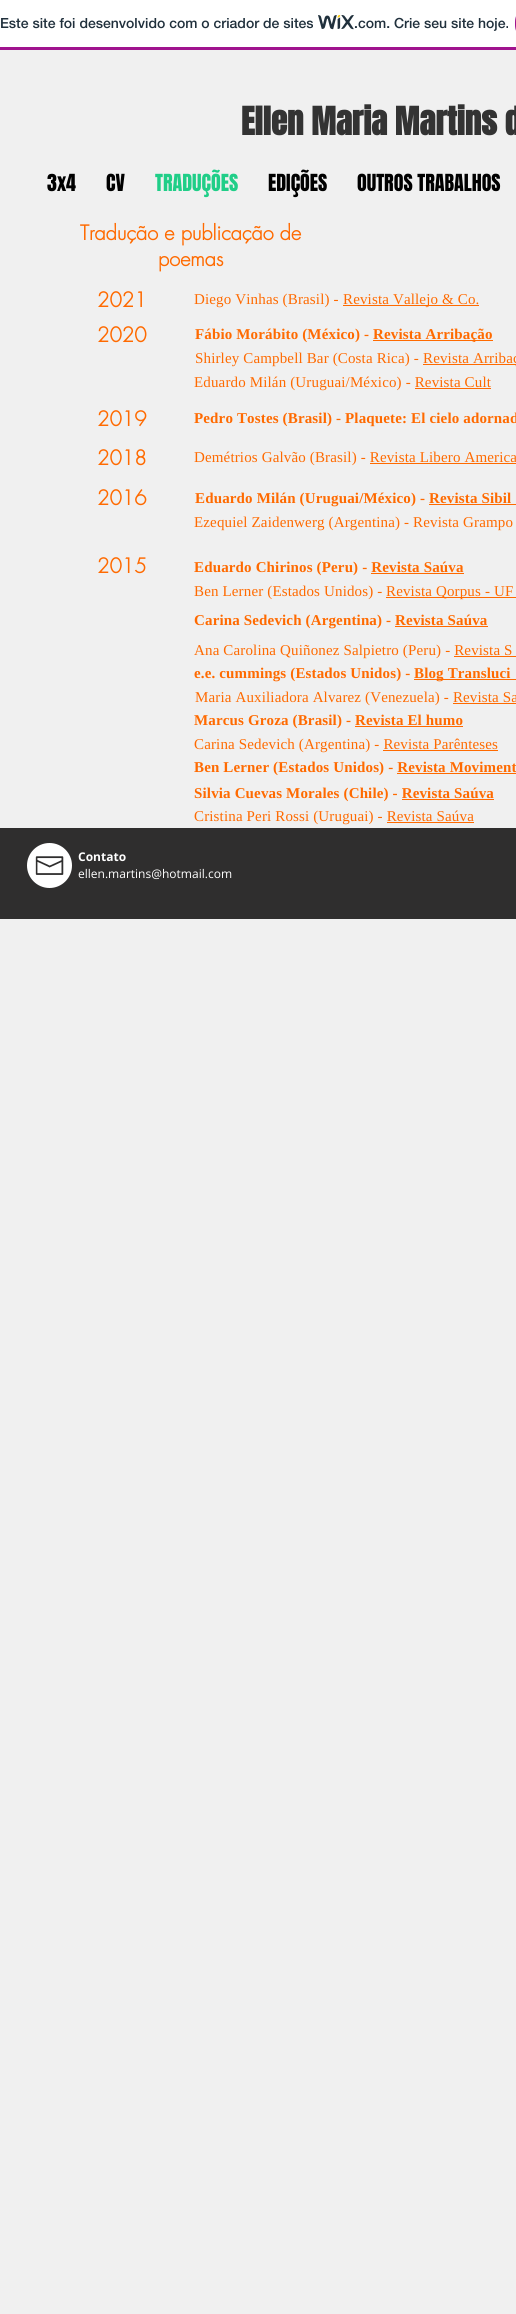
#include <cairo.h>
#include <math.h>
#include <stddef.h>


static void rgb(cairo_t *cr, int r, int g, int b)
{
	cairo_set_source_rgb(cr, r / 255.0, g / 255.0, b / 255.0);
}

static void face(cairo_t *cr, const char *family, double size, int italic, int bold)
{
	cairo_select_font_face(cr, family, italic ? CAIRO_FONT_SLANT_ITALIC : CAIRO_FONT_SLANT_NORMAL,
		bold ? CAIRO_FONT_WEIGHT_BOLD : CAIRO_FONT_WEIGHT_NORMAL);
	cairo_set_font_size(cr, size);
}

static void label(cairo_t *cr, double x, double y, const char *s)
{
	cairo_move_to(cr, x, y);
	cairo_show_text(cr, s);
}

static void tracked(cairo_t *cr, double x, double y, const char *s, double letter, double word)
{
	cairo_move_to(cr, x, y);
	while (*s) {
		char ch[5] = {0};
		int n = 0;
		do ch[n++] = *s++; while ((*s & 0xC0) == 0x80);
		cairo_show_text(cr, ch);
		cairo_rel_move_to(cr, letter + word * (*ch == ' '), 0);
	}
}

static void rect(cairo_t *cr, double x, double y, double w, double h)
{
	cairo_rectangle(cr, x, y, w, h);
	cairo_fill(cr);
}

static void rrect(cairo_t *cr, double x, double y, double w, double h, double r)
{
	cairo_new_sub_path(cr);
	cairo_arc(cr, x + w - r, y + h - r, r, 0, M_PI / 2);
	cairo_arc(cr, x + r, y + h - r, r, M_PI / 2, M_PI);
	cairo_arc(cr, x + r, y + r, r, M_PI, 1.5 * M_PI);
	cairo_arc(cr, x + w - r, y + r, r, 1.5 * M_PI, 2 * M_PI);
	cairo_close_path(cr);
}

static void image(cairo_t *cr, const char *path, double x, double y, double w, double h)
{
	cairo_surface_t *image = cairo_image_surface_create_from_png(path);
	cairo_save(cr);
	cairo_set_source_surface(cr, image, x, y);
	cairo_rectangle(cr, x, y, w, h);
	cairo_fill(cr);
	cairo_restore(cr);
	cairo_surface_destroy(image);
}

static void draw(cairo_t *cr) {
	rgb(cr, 255, 255, 255);
	cairo_paint(cr);
	rgb(cr, 160, 19, 142);
	rect(cr, 0, 47, 516, 3);
	face(cr, "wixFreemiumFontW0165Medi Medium", 14, 0, 0);
	rgb(cr, 32, 48, 60);
	label(cr, 0, 28, "Este site foi desenvolvido com o criador de sites");
	image(cr, "image0.png", 318, 15, 36, 15);
	label(cr, 354, 28, ".com. Crie seu site hoje.");
	rrect(cr, 515.5, 5.5, 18, 36, 16.5);
	rgb(cr, 160, 19, 142);
	cairo_set_line_width(cr, 1);
	cairo_stroke(cr);
	rgb(cr, 240, 240, 240);
	rect(cr, 0, 50, 516, 2264);
	face(cr, "Anton", 33, 0, 1);
	rgb(cr, 51, 51, 51);
	label(cr, 241, 135, "Ellen Maria Martins d");
	face(cr, "Anton", 20, 0, 0);
	rgb(cr, 0, 0, 0);
	label(cr, 47, 191, "3x4");
	label(cr, 106, 191, "CV");
	rgb(cr, 32, 206, 136);
	label(cr, 155, 191, "TRADUÇÕES");
	rgb(cr, 0, 0, 0);
	label(cr, 268, 191, "EDIÇÕES");
	label(cr, 357, 191, "OUTROS TRABALHOS");
	face(cr, "futura", 20, 0, 1);
	rgb(cr, 255, 106, 0);
	label(cr, 80, 240, "Tradução e publicação de");
	label(cr, 158, 266, "poemas");
	label(cr, 97, 307, "2021");
	face(cr, "Liberation Serif", 15, 0, 0);
	tracked(cr, 194, 304, "Diego Vinhas (Brasil) -", 0.15, 0);
	rect(cr, 343, 305, 136, 1);
	tracked(cr, 343, 304, "Revista Vallejo & Co.", 0.15, 0);
	face(cr, "futura", 20, 0, 1);
	label(cr, 97, 342, "2020");
	face(cr, "Liberation Serif", 15, 0, 1);
	tracked(cr, 195, 339, "Fábio Morábito (México) -", 0.15, 0);
	rect(cr, 373, 340, 120, 1);
	tracked(cr, 373, 339, "Revista Arribação", 0.15, 0);
	face(cr, "Liberation Serif", 15, 0, 0);
	tracked(cr, 195, 363, "Shirley Campbell Bar (Costa Rica) -", 0.15, 0);
	rect(cr, 423, 364, 93, 1);
	tracked(cr, 423, 363, "Revista Arribaç", 0.15, 0);
	tracked(cr, 194, 387, "Eduardo Milán (Uruguai/México) - Revista Cult", 0.15, 0);
	rect(cr, 415, 388, 76, 1);
	face(cr, "futura", 20, 0, 1);
	label(cr, 97, 426, "2019");
	face(cr, "Liberation Serif", 15, 0, 1);
	tracked(cr, 194, 423, "Pedro Tostes (Brasil) - Plaquete: El cielo adornad", 0.15, 0);
	face(cr, "futura", 20, 0, 1);
	label(cr, 97, 465, "2018");
	face(cr, "Liberation Serif", 15, 0, 0);
	tracked(cr, 194, 462, "Demétrios Galvão (Brasil) - Revista Libero America", 0.15, 0);
	rect(cr, 370, 463, 146, 1);
	face(cr, "futura", 20, 0, 1);
	label(cr, 97, 505, "2016");
	face(cr, "Liberation Serif", 15, 0, 1);
	tracked(cr, 195, 503, "Eduardo Milán (Uruguai/México) - Revista Sibil", 0.15, 0);
	rect(cr, 429, 504, 87, 1);
	face(cr, "Liberation Serif", 15, 0, 0);
	tracked(cr, 194, 527, "Ezequiel Zaidenwerg (Argentina) - Revista Grampo", 0.15, 0);
	face(cr, "futura", 20, 0, 1);
	label(cr, 97, 573, "2015");
	face(cr, "Liberation Serif", 15, 0, 1);
	tracked(cr, 194, 572, "Eduardo Chirinos (Peru) - Revista Saúva", 0.15, 0);
	rect(cr, 371, 573, 93, 1);
	face(cr, "Liberation Serif", 15, 0, 0);
	tracked(cr, 194, 596, "Ben Lerner (Estados Unidos) -", 0.15, 0);
	rect(cr, 386, 597, 130, 1);
	tracked(cr, 386, 596, "Revista Qorpus - UF", 0.15, 0);
	face(cr, "Liberation Serif", 15, 0, 1);
	tracked(cr, 194, 625, "Carina Sedevich (Argentina) - Revista Saúva", 0.15, 0);
	rect(cr, 395, 626, 93, 1);
	face(cr, "Liberation Serif", 15, 0, 0);
	tracked(cr, 194, 655, "Ana Carolina Quiñonez Salpietro (Peru) - Revista S", 0.15, 0);
	rect(cr, 454, 656, 62, 1);
	face(cr, "Liberation Serif", 15, 0, 1);
	tracked(cr, 194, 678, "e.e. cummings (Estados Unidos) -", 0.15, 0);
	rect(cr, 414, 679, 102, 1);
	tracked(cr, 414, 678, "Blog Transluci", 0.15, 0);
	face(cr, "Liberation Serif", 15, 0, 0);
	tracked(cr, 195, 702, "Maria Auxiliadora Alvarez (Venezuela) - Revista Sa", 0.15, 0);
	rect(cr, 453, 703, 63, 1);
	face(cr, "Liberation Serif", 15, 0, 1);
	tracked(cr, 194, 725, "Marcus Groza (Brasil) - Revista El humo", 0.15, 0);
	rect(cr, 355, 726, 108, 1);
	face(cr, "Liberation Serif", 15, 0, 0);
	tracked(cr, 194, 749, "Carina Sedevich (Argentina) - Revista Parênteses", 0.15, 0);
	rect(cr, 383, 750, 115, 1);
	face(cr, "Liberation Serif", 15, 0, 1);
	tracked(cr, 194, 772, "Ben Lerner (Estados Unidos) - Revista Moviment", 0.15, 0);
	rect(cr, 397, 773, 119, 1);
	tracked(cr, 194, 798, "Silvia Cuevas Morales (Chile) - Revista Saúva", 0.15, 0);
	rect(cr, 402, 799, 92, 1);
	face(cr, "Liberation Serif", 15, 0, 0);
	tracked(cr, 194, 821, "Cristina Peri Rossi (Uruguai) - Revista Saúva", 0.15, 0);
	rect(cr, 387, 822, 87, 1);
	rgb(cr, 47, 46, 46);
	rect(cr, 0, 828, 516, 91);
	image(cr, "image1.png", 27, 843, 45, 45);
	face(cr, "Open Sans", 12, 0, 1);
	rgb(cr, 255, 255, 255);
	label(cr, 78, 861, "Contato");
	face(cr, "Open Sans", 12, 0, 0);
	label(cr, 78, 878, "ellen.martins@hotmail.com");
}

int main(void) {
	cairo_surface_t *surface = cairo_image_surface_create(CAIRO_FORMAT_RGB24, 516, 2314);
	cairo_t *cr = cairo_create(surface);
	cairo_font_options_t *options = cairo_font_options_create();
	cairo_font_options_set_hint_metrics(options, CAIRO_HINT_METRICS_OFF);
	cairo_font_options_set_hint_style(options, CAIRO_HINT_STYLE_NONE);
	cairo_set_font_options(cr, options);
	cairo_set_miter_limit(cr, 4);
	draw(cr);
	cairo_surface_write_to_png(surface, "render.png");
	cairo_font_options_destroy(options);
	cairo_destroy(cr);
	cairo_surface_destroy(surface);
	return 0;
}
